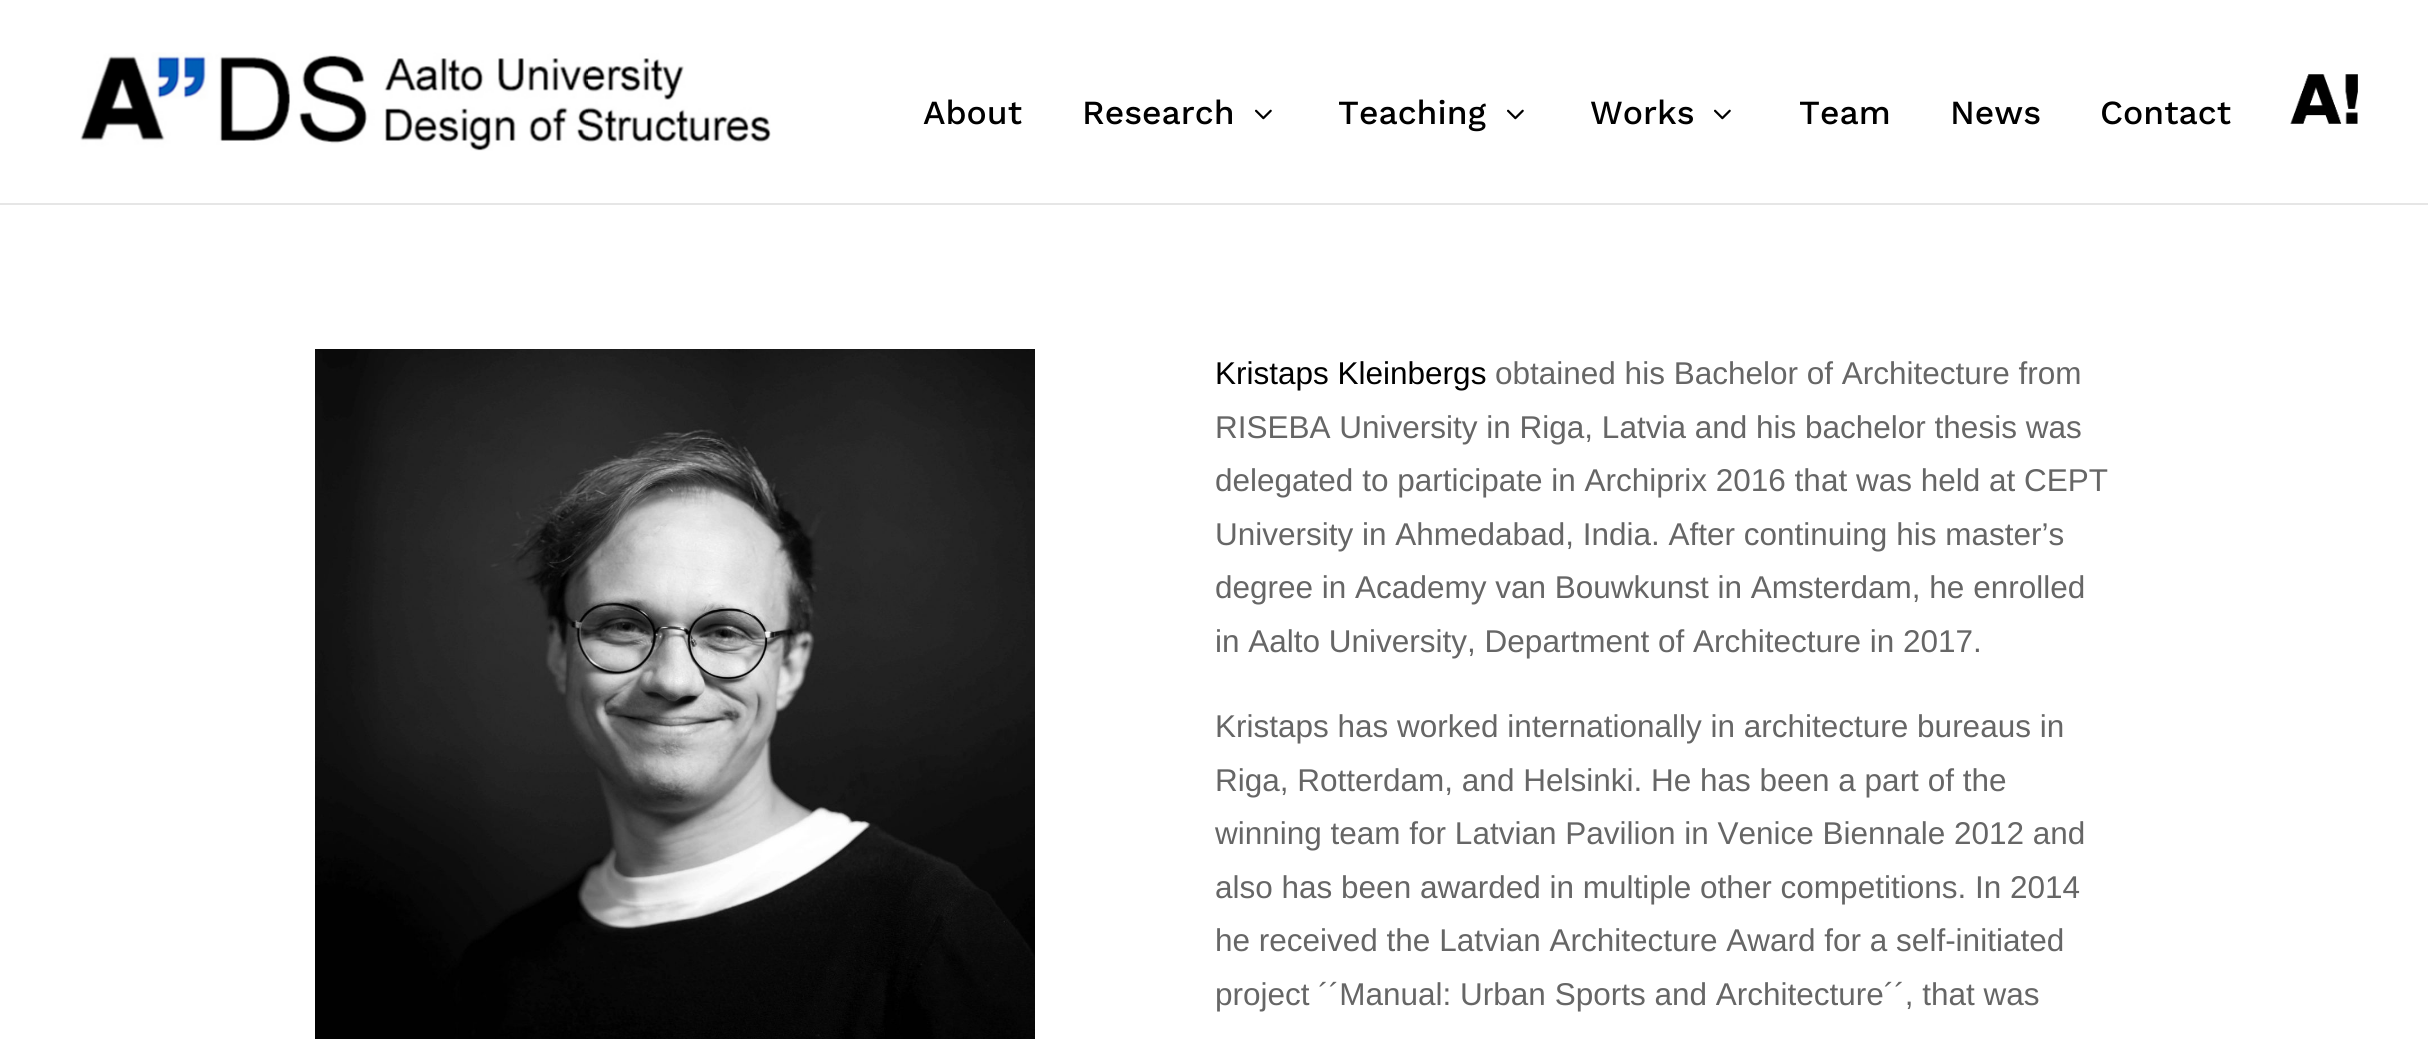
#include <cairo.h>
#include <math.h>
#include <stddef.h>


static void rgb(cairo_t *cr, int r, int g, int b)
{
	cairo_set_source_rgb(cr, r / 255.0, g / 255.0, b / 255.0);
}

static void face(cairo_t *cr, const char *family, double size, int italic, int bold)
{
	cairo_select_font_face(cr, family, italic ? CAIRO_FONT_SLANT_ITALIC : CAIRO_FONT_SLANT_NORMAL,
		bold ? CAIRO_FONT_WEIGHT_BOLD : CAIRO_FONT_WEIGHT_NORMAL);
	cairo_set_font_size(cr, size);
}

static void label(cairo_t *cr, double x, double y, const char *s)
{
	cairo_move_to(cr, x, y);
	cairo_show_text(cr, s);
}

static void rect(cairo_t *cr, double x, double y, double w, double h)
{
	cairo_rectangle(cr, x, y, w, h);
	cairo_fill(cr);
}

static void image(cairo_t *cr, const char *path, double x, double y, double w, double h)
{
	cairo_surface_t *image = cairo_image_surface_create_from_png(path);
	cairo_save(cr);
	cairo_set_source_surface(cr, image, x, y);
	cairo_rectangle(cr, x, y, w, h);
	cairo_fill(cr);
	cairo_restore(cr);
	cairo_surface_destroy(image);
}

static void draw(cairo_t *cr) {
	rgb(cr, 255, 255, 255);
	cairo_paint(cr);
	rgb(cr, 230, 230, 230);
	rect(cr, 0, 203, 2428, 2);
	image(cr, "image0.png", 80, 52, 691, 99);
	face(cr, "Work Sans Medium", 33.75, 0, 0);
	rgb(cr, 0, 0, 0);
	label(cr, 923, 124, "About");
	label(cr, 1082, 124, "Research");
	image(cr, "image1.png", 1255, 109, 17, 11);
	label(cr, 1338, 124, "Teaching");
	image(cr, "image1.png", 1507, 109, 17, 11);
	label(cr, 1590, 124, "Works");
	image(cr, "image1.png", 1714, 109, 17, 11);
	label(cr, 1799, 124, "Team");
	label(cr, 1950, 124, "News");
	label(cr, 2100, 124, "Contact");
	image(cr, "image2.png", 2290, 74, 68, 50);
	image(cr, "image3.png", 315, 349, 720, 690);
	face(cr, "Liberation Sans", 31.5, 0, 0);
	label(cr, 1215, 384, "Kristaps Kleinbergs");
	rgb(cr, 102, 102, 102);
	label(cr, 1495, 384, "obtained his Bachelor of Architecture from");
	label(cr, 1215, 438, "RISEBA University in Riga, Latvia and his bachelor thesis was");
	label(cr, 1215, 491, "delegated to participate in Archiprix 2016 that was held at CEPT");
	label(cr, 1215, 545, "University in Ahmedabad, India. After continuing his master’s");
	label(cr, 1215, 598, "degree in Academy van Bouwkunst in Amsterdam, he enrolled");
	label(cr, 1215, 652, "in Aalto University, Department of Architecture in 2017.");
	label(cr, 1215, 737, "Kristaps has worked internationally in architecture bureaus in");
	label(cr, 1215, 791, "Riga, Rotterdam, and Helsinki. He has been a part of the");
	label(cr, 1215, 844, "winning team for Latvian Pavilion in Venice Biennale 2012 and");
	label(cr, 1215, 898, "also has been awarded in multiple other competitions. In 2014");
	label(cr, 1215, 951, "he received the Latvian Architecture Award for a self-initiated");
	label(cr, 1215, 1005, "project ´´Manual: Urban Sports and Architecture´´, that was");
}

int main(void) {
	cairo_surface_t *surface = cairo_image_surface_create(CAIRO_FORMAT_RGB24, 2428, 1039);
	cairo_t *cr = cairo_create(surface);
	cairo_font_options_t *options = cairo_font_options_create();
	cairo_font_options_set_hint_metrics(options, CAIRO_HINT_METRICS_OFF);
	cairo_font_options_set_hint_style(options, CAIRO_HINT_STYLE_NONE);
	cairo_set_font_options(cr, options);
	cairo_set_miter_limit(cr, 4);
	draw(cr);
	cairo_surface_write_to_png(surface, "render.png");
	cairo_font_options_destroy(options);
	cairo_destroy(cr);
	cairo_surface_destroy(surface);
	return 0;
}
